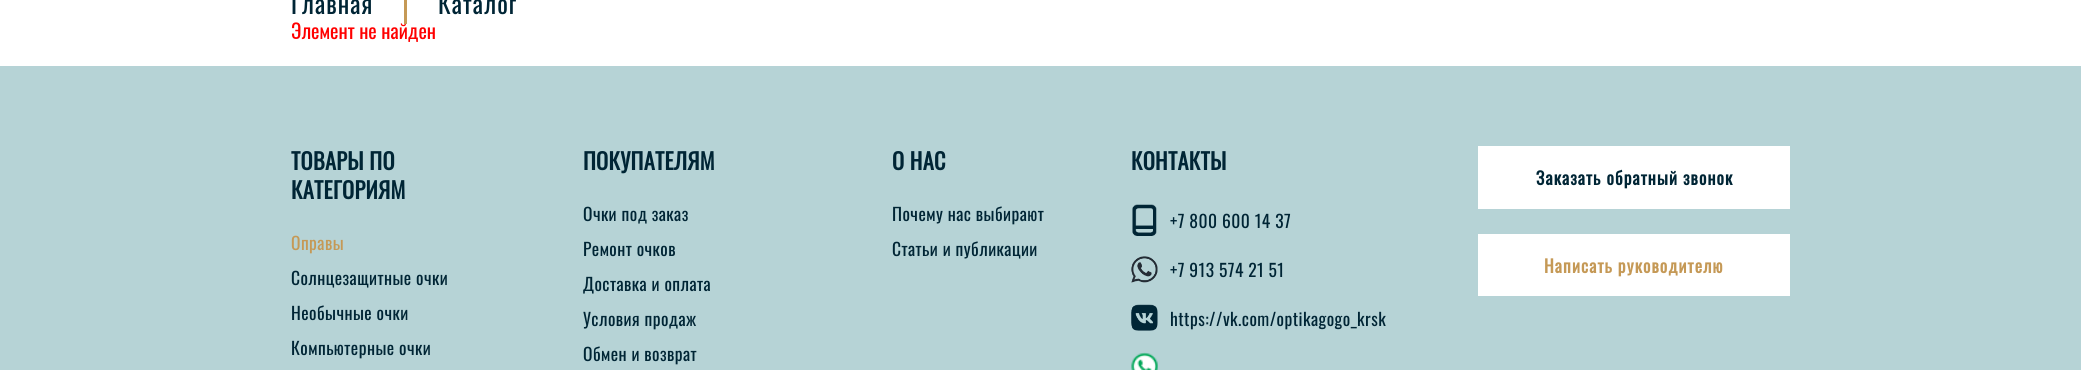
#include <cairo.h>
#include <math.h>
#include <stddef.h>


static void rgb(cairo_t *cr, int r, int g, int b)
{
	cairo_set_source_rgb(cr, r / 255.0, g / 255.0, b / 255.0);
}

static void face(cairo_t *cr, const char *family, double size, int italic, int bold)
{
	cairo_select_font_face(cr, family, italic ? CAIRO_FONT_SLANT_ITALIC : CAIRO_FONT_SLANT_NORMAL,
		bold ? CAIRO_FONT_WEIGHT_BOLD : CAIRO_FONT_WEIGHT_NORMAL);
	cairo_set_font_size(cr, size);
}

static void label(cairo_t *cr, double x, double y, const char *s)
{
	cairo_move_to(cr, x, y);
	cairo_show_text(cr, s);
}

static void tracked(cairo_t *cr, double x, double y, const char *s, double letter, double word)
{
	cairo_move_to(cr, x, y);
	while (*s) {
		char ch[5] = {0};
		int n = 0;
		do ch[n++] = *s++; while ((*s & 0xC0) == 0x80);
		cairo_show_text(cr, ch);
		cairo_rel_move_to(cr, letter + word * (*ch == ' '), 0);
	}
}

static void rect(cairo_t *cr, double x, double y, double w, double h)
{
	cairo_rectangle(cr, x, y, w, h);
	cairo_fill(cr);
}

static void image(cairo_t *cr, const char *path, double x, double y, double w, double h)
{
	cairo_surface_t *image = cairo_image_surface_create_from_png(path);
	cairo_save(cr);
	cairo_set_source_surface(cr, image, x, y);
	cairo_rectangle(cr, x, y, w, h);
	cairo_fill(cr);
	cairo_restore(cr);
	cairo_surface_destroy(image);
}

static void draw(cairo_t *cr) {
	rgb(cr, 255, 255, 255);
	cairo_paint(cr);
	face(cr, "Oswald", 25, 0, 0);
	rgb(cr, 0, 37, 53);
	tracked(cr, 291, 14, "Главная", 1.05, 0);
	face(cr, "Oswald", 20, 0, 0);
	rgb(cr, 255, 0, 0);
	label(cr, 291, 39, "Элемент не найден");
	rgb(cr, 197, 153, 86);
	rect(cr, 404, 0, 3, 24);
	face(cr, "Oswald", 25, 0, 0);
	rgb(cr, 0, 37, 53);
	tracked(cr, 438, 14, "Каталог", 1.05, 0);
	rgb(cr, 182, 211, 214);
	rect(cr, 0, 66, 2081, 304);
	face(cr, "Oswald", 22.5, 0, 1);
	rgb(cr, 0, 37, 53);
	tracked(cr, 291, 170, "ТОВАРЫ ПО", 0.25, 0);
	tracked(cr, 291, 199, "КАТЕГОРИЯМ", 0.25, 0);
	face(cr, "Oswald", 17.5, 0, 0);
	rgb(cr, 197, 153, 86);
	tracked(cr, 291, 250, "Оправы", 0.45, 0);
	rgb(cr, 0, 37, 53);
	tracked(cr, 291, 285, "Солнцезащитные очки", 0.45, 0);
	tracked(cr, 291, 320, "Необычные очки", 0.45, 0);
	tracked(cr, 291, 355, "Компьютерные очки", 0.45, 0);
	face(cr, "Oswald", 22.5, 0, 1);
	tracked(cr, 583, 170, "ПОКУПАТЕЛЯМ", 0.25, 0);
	face(cr, "Oswald", 17.5, 0, 0);
	tracked(cr, 583, 221, "Очки под заказ", 0.45, 0);
	tracked(cr, 583, 256, "Ремонт очков", 0.45, 0);
	tracked(cr, 583, 291, "Доставка и оплата", 0.45, 0);
	tracked(cr, 583, 326, "Условия продаж", 0.45, 0);
	tracked(cr, 583, 361, "Обмен и возврат", 0.45, 0);
	face(cr, "Oswald", 22.5, 0, 1);
	tracked(cr, 892, 170, "О НАС", 0.25, 0);
	face(cr, "Oswald", 17.5, 0, 0);
	tracked(cr, 892, 221, "Почему нас выбирают", 0.45, 0);
	tracked(cr, 892, 256, "Статьи и публикации", 0.45, 0);
	face(cr, "Oswald", 22.5, 0, 1);
	tracked(cr, 1131, 170, "КОНТАКТЫ", 0.25, 0);
	image(cr, "image0.png", 1132, 204, 25, 32);
	face(cr, "Oswald", 17.5, 0, 0);
	tracked(cr, 1170, 228, "+7 800 600 14 37", 0.45, 0);
	image(cr, "image1.png", 1131, 256, 27, 27);
	tracked(cr, 1170, 277, "+7 913 574 21 51", 0.45, 0);
	image(cr, "image2.png", 1131, 304, 27, 27);
	tracked(cr, 1170, 326, "https://vk.com/optikagogo_krsk", 0.45, 0);
	image(cr, "image3.png", 1131, 352, 27, 18);
	rgb(cr, 255, 255, 255);
	rect(cr, 1478, 146, 312, 63);
	face(cr, "Oswald", 17.5, 0, 1);
	rgb(cr, 0, 37, 53);
	tracked(cr, 1536, 185, "Заказать обратный звонок", 1.05, 0);
	rgb(cr, 255, 255, 255);
	rect(cr, 1478, 234, 312, 62);
	rgb(cr, 197, 153, 86);
	tracked(cr, 1544, 273, "Написать руководителю", 1.05, 0);
}

int main(void) {
	cairo_surface_t *surface = cairo_image_surface_create(CAIRO_FORMAT_RGB24, 2081, 370);
	cairo_t *cr = cairo_create(surface);
	cairo_font_options_t *options = cairo_font_options_create();
	cairo_font_options_set_hint_metrics(options, CAIRO_HINT_METRICS_OFF);
	cairo_font_options_set_hint_style(options, CAIRO_HINT_STYLE_NONE);
	cairo_set_font_options(cr, options);
	cairo_set_miter_limit(cr, 4);
	draw(cr);
	cairo_surface_write_to_png(surface, "render.png");
	cairo_font_options_destroy(options);
	cairo_destroy(cr);
	cairo_surface_destroy(surface);
	return 0;
}
